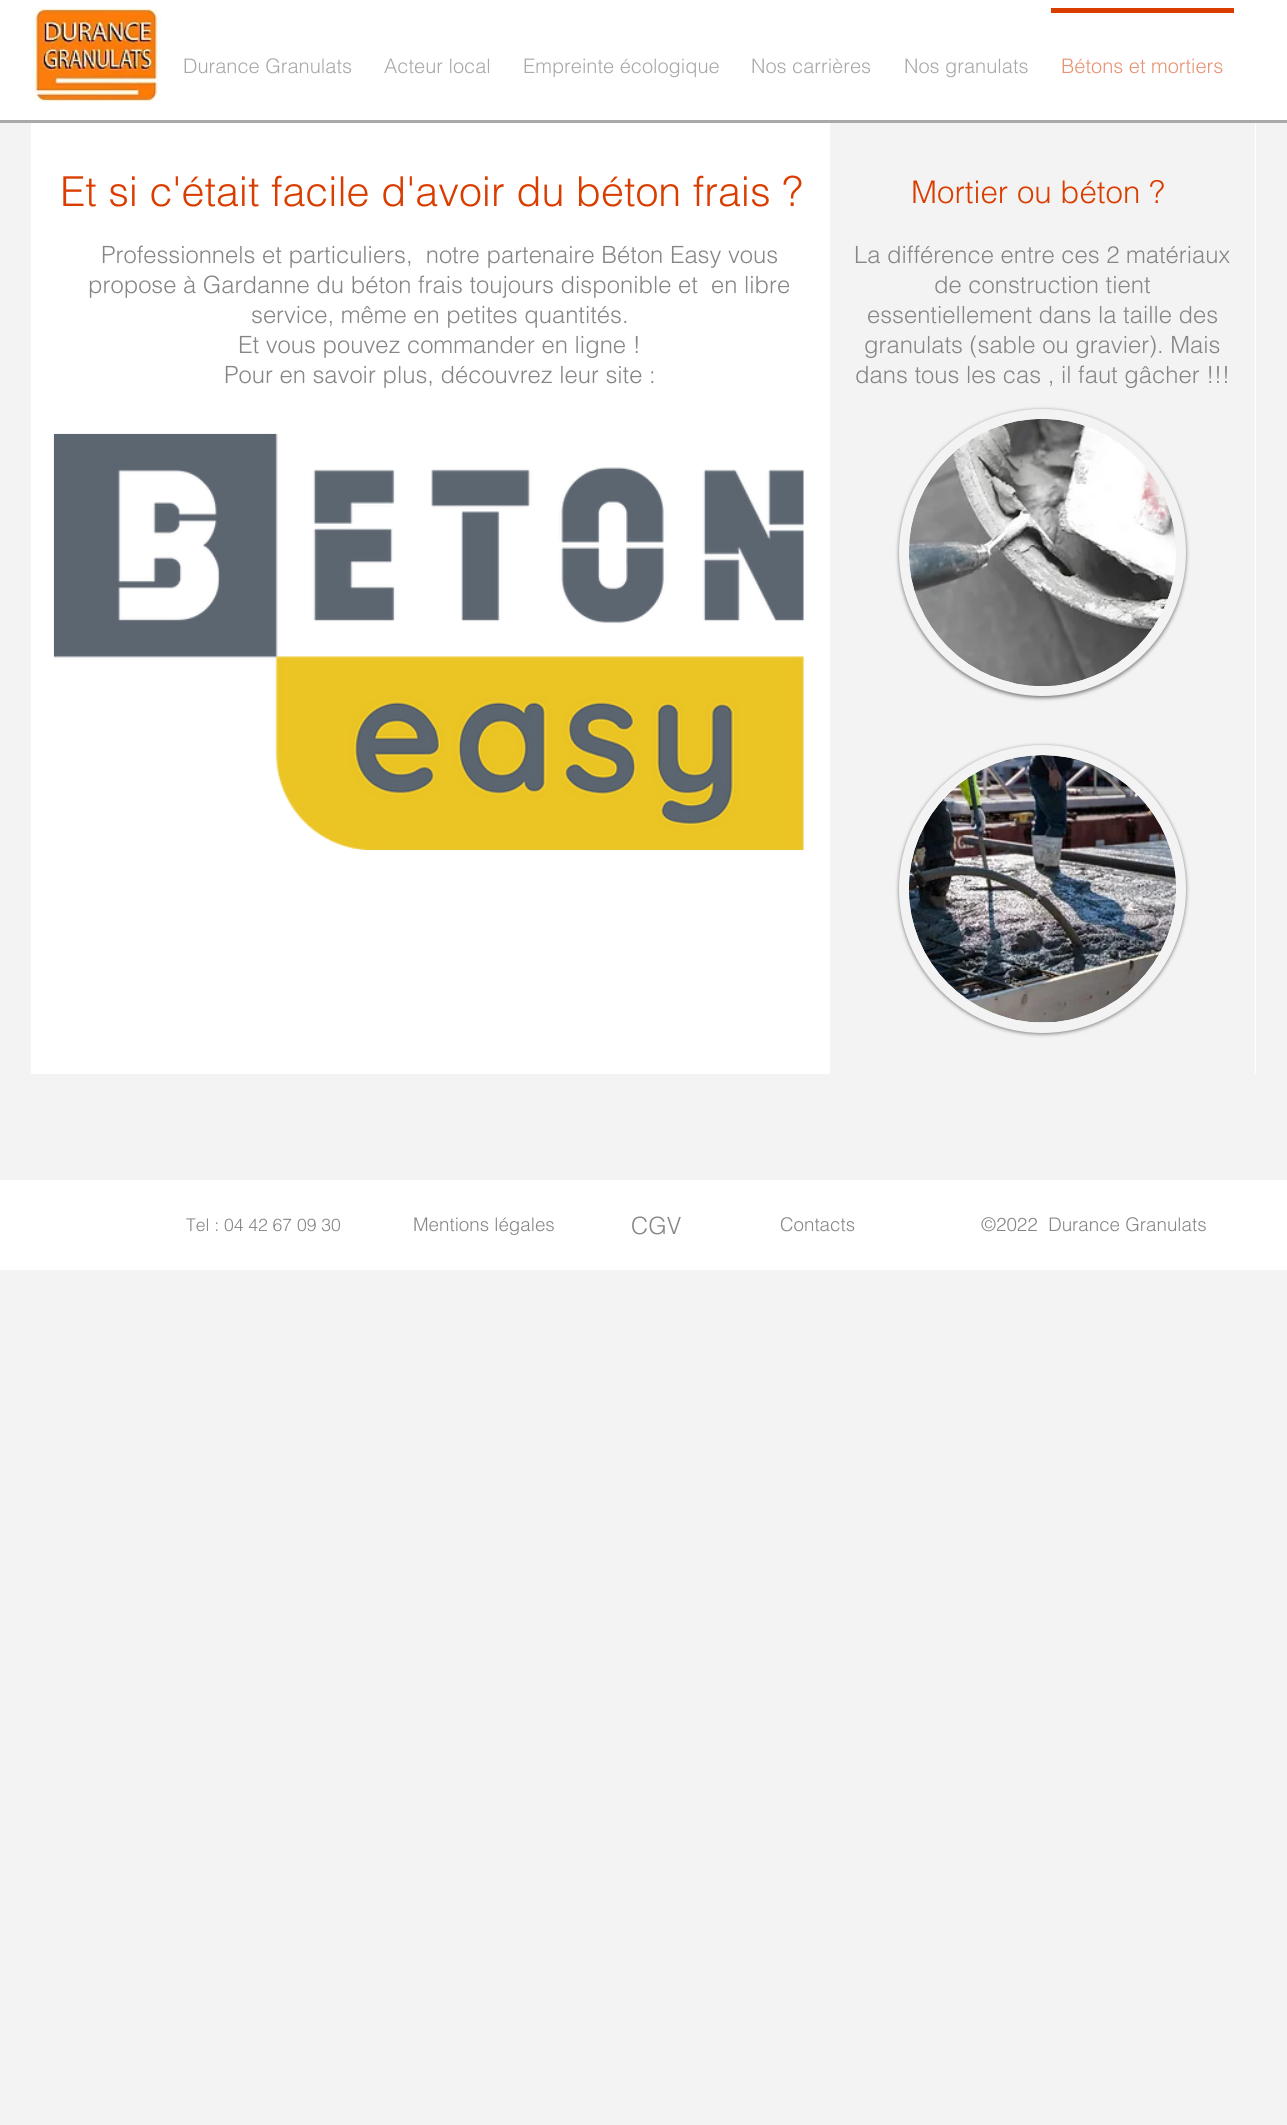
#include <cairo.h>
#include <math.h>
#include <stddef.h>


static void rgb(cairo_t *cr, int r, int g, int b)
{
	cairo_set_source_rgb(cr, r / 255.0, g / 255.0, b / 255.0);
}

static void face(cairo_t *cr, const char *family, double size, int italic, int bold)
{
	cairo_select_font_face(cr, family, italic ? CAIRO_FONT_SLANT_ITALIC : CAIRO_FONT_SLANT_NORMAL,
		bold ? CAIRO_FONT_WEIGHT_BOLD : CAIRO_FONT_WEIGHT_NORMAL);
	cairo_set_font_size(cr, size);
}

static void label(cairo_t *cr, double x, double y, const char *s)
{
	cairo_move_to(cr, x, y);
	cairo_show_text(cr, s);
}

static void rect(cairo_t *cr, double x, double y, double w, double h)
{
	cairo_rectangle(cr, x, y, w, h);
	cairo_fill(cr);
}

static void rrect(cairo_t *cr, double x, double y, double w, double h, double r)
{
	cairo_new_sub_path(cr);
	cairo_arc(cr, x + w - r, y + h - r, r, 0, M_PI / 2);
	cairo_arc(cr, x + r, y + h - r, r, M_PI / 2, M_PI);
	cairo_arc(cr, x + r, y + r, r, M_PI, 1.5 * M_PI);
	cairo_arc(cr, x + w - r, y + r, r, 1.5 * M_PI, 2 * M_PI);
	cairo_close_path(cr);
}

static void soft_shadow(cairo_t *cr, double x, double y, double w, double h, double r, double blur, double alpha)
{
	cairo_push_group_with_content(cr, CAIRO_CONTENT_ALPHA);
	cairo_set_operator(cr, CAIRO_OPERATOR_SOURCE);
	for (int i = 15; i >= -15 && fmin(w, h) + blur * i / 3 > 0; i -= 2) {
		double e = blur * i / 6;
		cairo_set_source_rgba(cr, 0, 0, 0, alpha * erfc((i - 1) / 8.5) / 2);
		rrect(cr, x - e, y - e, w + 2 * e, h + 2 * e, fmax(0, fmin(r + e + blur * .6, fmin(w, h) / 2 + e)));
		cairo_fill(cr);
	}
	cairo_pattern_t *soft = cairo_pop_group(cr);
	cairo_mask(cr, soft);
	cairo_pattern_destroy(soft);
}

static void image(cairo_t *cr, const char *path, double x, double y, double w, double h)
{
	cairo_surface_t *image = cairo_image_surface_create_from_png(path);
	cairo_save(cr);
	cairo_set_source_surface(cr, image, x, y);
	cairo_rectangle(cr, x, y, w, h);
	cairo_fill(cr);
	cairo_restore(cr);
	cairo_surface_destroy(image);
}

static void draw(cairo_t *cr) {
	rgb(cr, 243, 243, 243);
	cairo_paint(cr);
	rgb(cr, 255, 255, 255);
	rect(cr, 0, 0, 1287, 120);
	rgb(cr, 170, 168, 168);
	rect(cr, 0, 120, 1287, 3);
	image(cr, "image0.png", 31, 8, 130, 94);
	face(cr, "helvetica Light", 20, 0, 0);
	rgb(cr, 169, 169, 169);
	label(cr, 183, 73, "Durance Granulats");
	label(cr, 384, 73, "Acteur local");
	label(cr, 523, 73, "Empreinte écologique");
	label(cr, 751, 73, "Nos carrières");
	label(cr, 904, 73, "Nos granulats");
	rgb(cr, 217, 61, 0);
	rect(cr, 1051, 8, 183, 5);
	rgb(cr, 230, 147, 115);
	label(cr, 1061, 73, "Bétons et mortiers");
	rgb(cr, 255, 255, 255);
	rect(cr, 31, 123, 1225, 951);
	face(cr, "helvetica Light", 41.25, 0, 0);
	rgb(cr, 217, 61, 0);
	label(cr, 60, 206, "Et si c'était facile d'avoir du béton frais ?");
	rgb(cr, 243, 243, 243);
	rect(cr, 830, 123, 425, 951);
	face(cr, "helvetica Light", 31.25, 0, 0);
	rgb(cr, 217, 61, 0);
	label(cr, 911, 203, "Mortier ou béton ?");
	face(cr, "helvetica Light", 23.75, 0, 0);
	rgb(cr, 134, 134, 134);
	label(cr, 854, 263, "La différence entre ces 2 matériaux");
	label(cr, 934, 293, "de construction tient");
	label(cr, 867, 323, "essentiellement dans la taille des");
	label(cr, 864, 353, "granulats (sable ou gravier). Mais");
	label(cr, 855, 383, "dans tous les cas , il faut gâcher !!!");
	rgb(cr, 0, 0, 0);
	soft_shadow(cr, 899, 410, 287, 288, 143.5, 2, 0.5);
	rgb(cr, 243, 243, 243);
	cairo_arc(cr, 1042.5, 552.5, 138.5, 0, 2 * M_PI);
	cairo_fill_preserve(cr);
	cairo_set_line_width(cr, 10);
	cairo_stroke(cr);
	image(cr, "image1.png", 909, 419, 267, 267);
	rgb(cr, 0, 0, 0);
	soft_shadow(cr, 899, 746, 287, 288, 143.5, 2, 0.5);
	rgb(cr, 243, 243, 243);
	rrect(cr, 904, 750, 277, 278, 138.5);
	cairo_fill_preserve(cr);
	cairo_stroke(cr);
	image(cr, "image2.png", 909, 755, 267, 268);
	rgb(cr, 134, 134, 134);
	label(cr, 101, 263, "Professionnels et particuliers,  notre partenaire Béton Easy vous");
	label(cr, 88, 293, "propose à Gardanne du béton frais toujours disponible et  en libre");
	label(cr, 251, 323, "service, même en petites quantités.");
	label(cr, 238, 353, "Et vous pouvez commander en ligne !");
	label(cr, 224, 383, "Pour en savoir plus, découvrez leur site :");
	image(cr, "image3.png", 53, 433, 751, 417);
	rgb(cr, 255, 255, 255);
	rect(cr, 0, 1180, 1287, 90);
	face(cr, "helvetica Light", 17.5, 0, 0);
	rgb(cr, 134, 134, 134);
	label(cr, 186, 1231, "Tel : 04 42 67 09 30");
	face(cr, "helvetica Light", 18.75, 0, 0);
	label(cr, 413, 1231, "Mentions légales");
	face(cr, "helvetica Light", 23.75, 0, 0);
	label(cr, 631, 1234, "CGV");
	face(cr, "helvetica Light", 18.75, 0, 0);
	label(cr, 780, 1231, "Contacts");
	label(cr, 981, 1231, "©2022  Durance Granulats");
}

int main(void) {
	cairo_surface_t *surface = cairo_image_surface_create(CAIRO_FORMAT_RGB24, 1287, 2125);
	cairo_t *cr = cairo_create(surface);
	cairo_font_options_t *options = cairo_font_options_create();
	cairo_font_options_set_hint_metrics(options, CAIRO_HINT_METRICS_OFF);
	cairo_font_options_set_hint_style(options, CAIRO_HINT_STYLE_NONE);
	cairo_set_font_options(cr, options);
	cairo_set_miter_limit(cr, 4);
	draw(cr);
	cairo_surface_write_to_png(surface, "render.png");
	cairo_font_options_destroy(options);
	cairo_destroy(cr);
	cairo_surface_destroy(surface);
	return 0;
}
